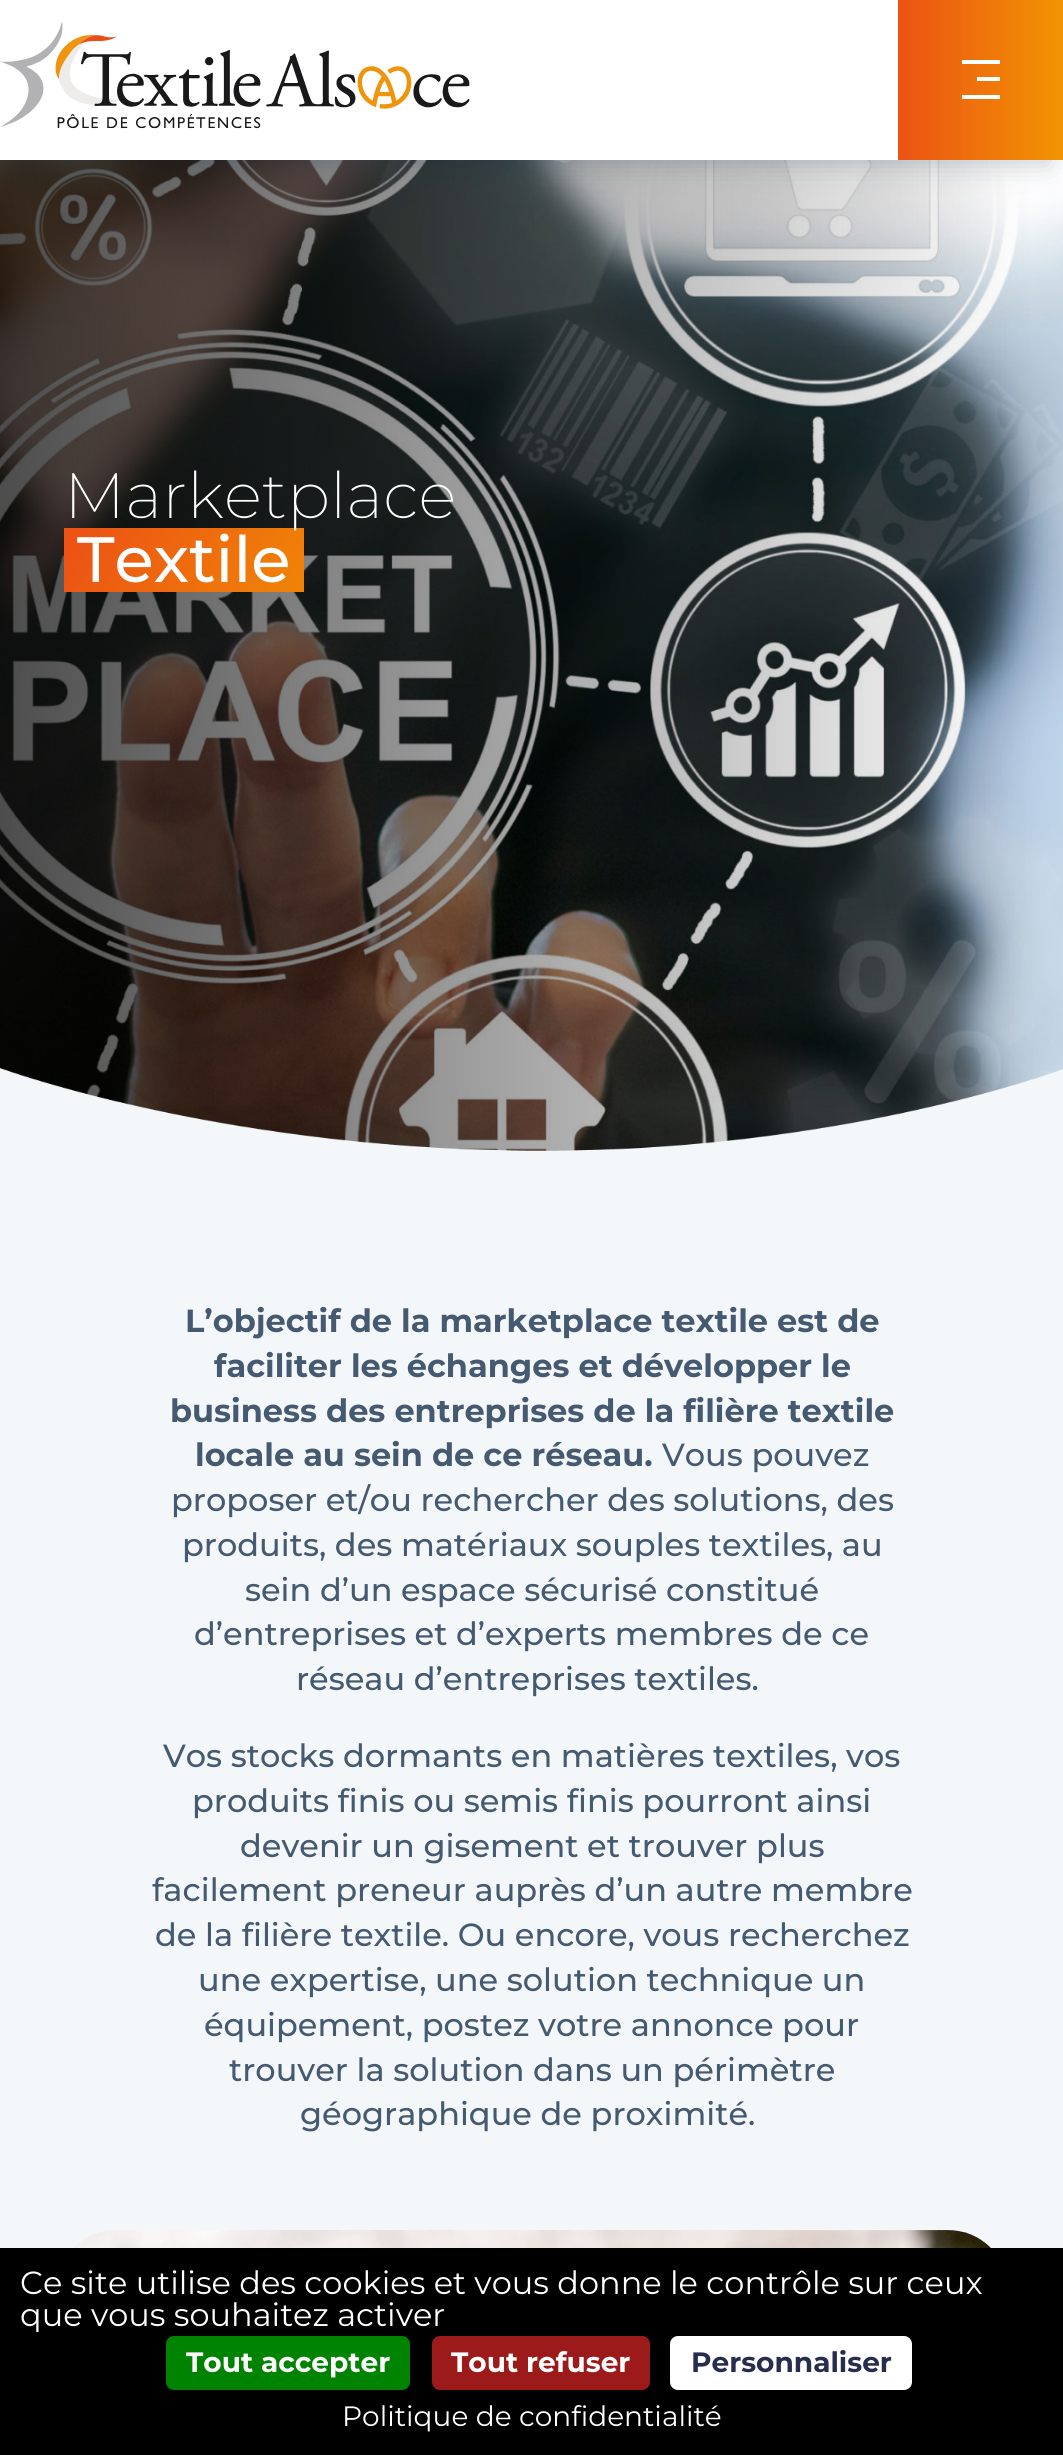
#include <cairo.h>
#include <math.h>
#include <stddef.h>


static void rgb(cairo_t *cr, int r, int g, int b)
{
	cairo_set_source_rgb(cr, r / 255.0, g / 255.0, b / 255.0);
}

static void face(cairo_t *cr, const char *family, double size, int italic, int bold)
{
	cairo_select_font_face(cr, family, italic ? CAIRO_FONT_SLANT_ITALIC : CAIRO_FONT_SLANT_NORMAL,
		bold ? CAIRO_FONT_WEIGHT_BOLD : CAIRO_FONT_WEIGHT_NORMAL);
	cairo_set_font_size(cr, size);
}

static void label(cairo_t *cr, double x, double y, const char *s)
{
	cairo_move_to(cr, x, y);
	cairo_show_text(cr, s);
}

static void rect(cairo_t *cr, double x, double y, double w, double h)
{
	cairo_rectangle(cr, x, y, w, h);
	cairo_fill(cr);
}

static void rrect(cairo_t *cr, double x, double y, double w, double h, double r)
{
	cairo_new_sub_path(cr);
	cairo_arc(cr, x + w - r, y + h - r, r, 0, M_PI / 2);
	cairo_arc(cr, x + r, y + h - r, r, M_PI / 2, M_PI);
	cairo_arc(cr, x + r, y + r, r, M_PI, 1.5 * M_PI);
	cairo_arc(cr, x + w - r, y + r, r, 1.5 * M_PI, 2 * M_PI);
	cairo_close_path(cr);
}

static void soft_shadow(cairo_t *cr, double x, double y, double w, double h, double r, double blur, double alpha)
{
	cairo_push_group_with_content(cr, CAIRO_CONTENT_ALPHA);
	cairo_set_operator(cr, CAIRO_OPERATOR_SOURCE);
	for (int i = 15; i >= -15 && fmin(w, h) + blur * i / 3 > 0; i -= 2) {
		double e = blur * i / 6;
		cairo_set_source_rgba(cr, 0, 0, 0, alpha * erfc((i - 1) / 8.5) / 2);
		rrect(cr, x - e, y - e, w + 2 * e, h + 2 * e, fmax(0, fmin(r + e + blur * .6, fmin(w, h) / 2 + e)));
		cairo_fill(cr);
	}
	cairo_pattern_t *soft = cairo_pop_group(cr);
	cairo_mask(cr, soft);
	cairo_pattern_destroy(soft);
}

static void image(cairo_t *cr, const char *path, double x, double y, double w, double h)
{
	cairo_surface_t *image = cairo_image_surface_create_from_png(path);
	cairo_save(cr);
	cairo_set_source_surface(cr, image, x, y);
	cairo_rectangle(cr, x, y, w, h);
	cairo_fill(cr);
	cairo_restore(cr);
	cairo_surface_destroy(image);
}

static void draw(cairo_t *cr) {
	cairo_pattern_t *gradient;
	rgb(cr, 244, 247, 250);
	cairo_paint(cr);
	image(cr, "image1.png", 0, 160, 1063, 991);
	rgb(cr, 10, 37, 68);
	soft_shadow(cr, 14, 34, 1036, 132, 0, 13, 0.2);
	rgb(cr, 255, 255, 255);
	rect(cr, 0, 0, 898, 160);
	image(cr, "image0.png", 0, 22, 470, 107);
	gradient = cairo_pattern_create_linear(898, 80, 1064, 80);
	cairo_pattern_add_color_stop_rgba(gradient, 0, 0.925, 0.325, 0.078, 1);
	cairo_pattern_add_color_stop_rgba(gradient, 1, 0.949, 0.58, 0.008, 1);
	cairo_set_source(cr, gradient);
	cairo_pattern_destroy(gradient);
	rect(cr, 898, 0, 165, 160);
	rgb(cr, 255, 255, 255);
	rect(cr, 962, 60, 38, 4);
	rect(cr, 977, 77, 23, 4);
	rect(cr, 962, 95, 38, 4);
	gradient = cairo_pattern_create_linear(84, 497, 343, 661);
	cairo_pattern_add_color_stop_rgba(gradient, 0.05, 0.925, 0.325, 0.078, 1);
	cairo_pattern_add_color_stop_rgba(gradient, 1, 0.949, 0.58, 0.008, 1);
	cairo_set_source(cr, gradient);
	cairo_pattern_destroy(gradient);
	rect(cr, 64, 528, 240, 64);
	face(cr, "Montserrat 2 Thin", 64, 0, 0);
	rgb(cr, 255, 255, 255);
	label(cr, 64, 518, "Marketplace");
	face(cr, "Montserrat Thin", 64, 0, 0);
	label(cr, 77, 582, "Textile");
	image(cr, "image2.png", 0, 1068, 1063, 92);
	face(cr, "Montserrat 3 Thin", 32, 0, 0);
	rgb(cr, 69, 90, 113);
	label(cr, 185, 1332, "L’objectif de la marketplace textile est de");
	label(cr, 214, 1377, "faciliter les échanges et développer le");
	label(cr, 170, 1422, "business des entreprises de la filière textile");
	label(cr, 195, 1466, "locale au sein de ce réseau.");
	face(cr, "Montserrat Thin", 32, 0, 0);
	label(cr, 662, 1466, "Vous pouvez");
	label(cr, 171, 1511, "proposer et/ou rechercher des solutions, des");
	label(cr, 182, 1556, "produits, des matériaux souples textiles, au");
	label(cr, 245, 1601, "sein d’un espace sécurisé constitué");
	label(cr, 194, 1645, "d’entreprises et d’experts membres de ce");
	label(cr, 296, 1690, "réseau d’entreprises textiles.");
	label(cr, 163, 1767, "Vos stocks dormants en matières textiles, vos");
	label(cr, 192, 1812, "produits finis ou semis finis pourront ainsi");
	label(cr, 240, 1857, "devenir un gisement et trouver plus");
	label(cr, 152, 1901, "facilement preneur auprès d’un autre membre");
	label(cr, 155, 1946, "de la filière textile. Ou encore, vous recherchez");
	label(cr, 198, 1991, "une expertise, une solution technique un");
	label(cr, 204, 2036, "équipement, postez votre annonce pour");
	label(cr, 229, 2081, "trouver la solution dans un périmètre");
	label(cr, 300, 2125, "géographique de proximité.");
	image(cr, "image3.png", 73, 2230, 918, 18);
	rgb(cr, 0, 0, 0);
	rect(cr, 0, 2248, 1063, 207);
	face(cr, "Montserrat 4 Thin", 32, 0, 0);
	rgb(cr, 255, 255, 255);
	label(cr, 20, 2294, "Ce site utilise des cookies et vous donne le contrôle sur ceux");
	cairo_save(cr);
	cairo_rectangle(cr, 0, 2268, 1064, 64);
	cairo_clip(cr);
	label(cr, 20, 2326, "que vous souhaitez activer");
	cairo_restore(cr);
	rgb(cr, 0, 131, 0);
	rrect(cr, 166, 2336, 244, 54, 8);
	cairo_fill(cr);
	face(cr, "Montserrat 3 Thin", 28, 0, 0);
	rgb(cr, 255, 255, 255);
	label(cr, 186, 2372, "Tout accepter");
	rgb(cr, 156, 26, 26);
	rrect(cr, 432, 2336, 218, 54, 8);
	cairo_fill(cr);
	rgb(cr, 255, 255, 255);
	label(cr, 451, 2372, "Tout refuser");
	rrect(cr, 670, 2336, 242, 54, 8);
	cairo_fill(cr);
	rgb(cr, 40, 44, 78);
	label(cr, 691, 2372, "Personnaliser");
	face(cr, "Montserrat 4 Thin", 28, 0, 0);
	rgb(cr, 255, 255, 255);
	label(cr, 342, 2426, "Politique de confidentialité");
}

int main(void) {
	cairo_surface_t *surface = cairo_image_surface_create(CAIRO_FORMAT_RGB24, 1063, 2455);
	cairo_t *cr = cairo_create(surface);
	cairo_font_options_t *options = cairo_font_options_create();
	cairo_font_options_set_hint_metrics(options, CAIRO_HINT_METRICS_OFF);
	cairo_font_options_set_hint_style(options, CAIRO_HINT_STYLE_NONE);
	cairo_set_font_options(cr, options);
	cairo_set_miter_limit(cr, 4);
	draw(cr);
	cairo_surface_write_to_png(surface, "render.png");
	cairo_font_options_destroy(options);
	cairo_destroy(cr);
	cairo_surface_destroy(surface);
	return 0;
}
